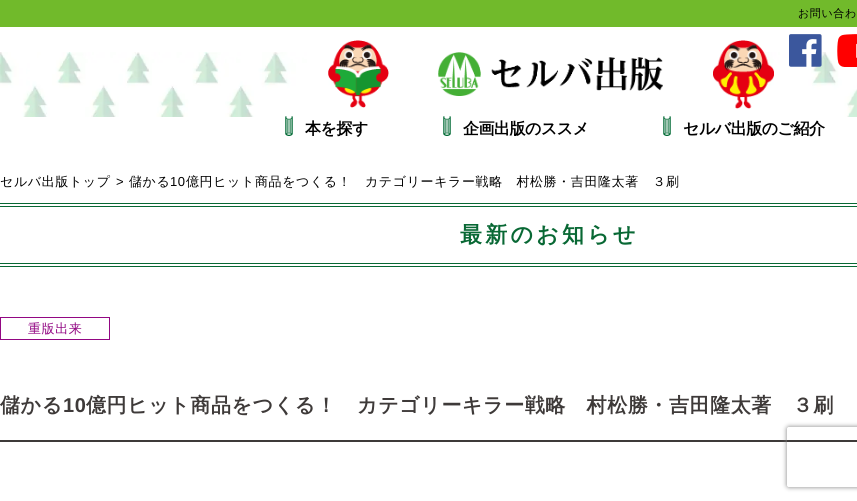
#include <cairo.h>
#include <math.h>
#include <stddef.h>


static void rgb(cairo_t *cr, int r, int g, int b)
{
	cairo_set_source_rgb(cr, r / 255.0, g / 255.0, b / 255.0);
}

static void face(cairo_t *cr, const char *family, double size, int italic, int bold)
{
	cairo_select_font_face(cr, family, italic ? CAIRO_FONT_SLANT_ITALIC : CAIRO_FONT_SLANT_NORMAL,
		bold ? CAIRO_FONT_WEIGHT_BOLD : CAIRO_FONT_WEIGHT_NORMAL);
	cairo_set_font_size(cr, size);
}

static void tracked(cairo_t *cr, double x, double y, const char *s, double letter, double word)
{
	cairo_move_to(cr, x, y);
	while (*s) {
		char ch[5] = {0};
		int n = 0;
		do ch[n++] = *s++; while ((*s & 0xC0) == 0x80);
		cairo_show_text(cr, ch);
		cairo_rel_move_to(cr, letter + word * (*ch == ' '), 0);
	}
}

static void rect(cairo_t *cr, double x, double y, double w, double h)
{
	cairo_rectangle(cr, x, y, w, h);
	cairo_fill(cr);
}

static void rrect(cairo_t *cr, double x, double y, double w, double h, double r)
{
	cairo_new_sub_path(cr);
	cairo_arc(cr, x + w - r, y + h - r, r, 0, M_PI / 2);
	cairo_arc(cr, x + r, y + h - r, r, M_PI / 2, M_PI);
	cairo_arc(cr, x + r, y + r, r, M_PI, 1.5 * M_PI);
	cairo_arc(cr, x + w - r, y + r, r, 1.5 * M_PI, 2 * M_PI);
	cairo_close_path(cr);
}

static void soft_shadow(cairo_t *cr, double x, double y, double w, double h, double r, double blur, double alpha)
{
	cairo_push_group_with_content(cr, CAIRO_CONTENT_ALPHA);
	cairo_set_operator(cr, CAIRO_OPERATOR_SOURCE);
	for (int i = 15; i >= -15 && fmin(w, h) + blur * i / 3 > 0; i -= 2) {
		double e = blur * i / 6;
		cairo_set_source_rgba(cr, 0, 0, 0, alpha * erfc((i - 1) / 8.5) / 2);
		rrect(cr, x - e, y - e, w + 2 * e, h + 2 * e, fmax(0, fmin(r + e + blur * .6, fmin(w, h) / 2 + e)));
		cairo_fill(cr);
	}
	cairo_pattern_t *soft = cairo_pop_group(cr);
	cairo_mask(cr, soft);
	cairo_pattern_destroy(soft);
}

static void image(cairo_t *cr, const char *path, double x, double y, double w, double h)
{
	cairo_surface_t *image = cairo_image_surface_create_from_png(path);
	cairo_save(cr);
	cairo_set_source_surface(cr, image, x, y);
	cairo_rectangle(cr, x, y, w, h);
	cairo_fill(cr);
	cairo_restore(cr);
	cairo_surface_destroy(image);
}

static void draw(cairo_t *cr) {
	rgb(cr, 255, 255, 255);
	cairo_paint(cr);
	rgb(cr, 113, 186, 43);
	rect(cr, 0, 0, 857, 27);
	face(cr, "WenQuanYi Zen Hei Medium", 11, 0, 0);
	rgb(cr, 0, 0, 0);
	tracked(cr, 798, 17, "お問い合わ", 0.6, 0);
	image(cr, "image2.png", 0, 52, 857, 65);
	image(cr, "image0.png", 789, 34, 33, 33);
	image(cr, "image1.png", 837, 34, 20, 33);
	image(cr, "image3.png", 328, 40, 61, 68);
	image(cr, "image4.png", 438, 52, 225, 44);
	image(cr, "image5.png", 713, 40, 61, 69);
	image(cr, "image6.png", 285, 116, 8, 20);
	face(cr, "WenQuanYi Zen Hei", 16, 0, 1);
	tracked(cr, 305, 134, "本を探す", -0.5, 0);
	image(cr, "image6.png", 443, 116, 8, 20);
	tracked(cr, 463, 134, "企画出版のススメ", -0.5, 0);
	image(cr, "image6.png", 663, 116, 8, 20);
	tracked(cr, 683, 134, "セルバ出版のご紹介", -0.5, 0);
	face(cr, "WenQuanYi Zen Hei Medium", 13, 0, 0);
	tracked(cr, 0, 186, "セルバ出版トップ", 0.6, 0);
	face(cr, "Liberation Sans", 13, 0, 0);
	tracked(cr, 116, 186, ">", 0.6, 0);
	face(cr, "WenQuanYi Zen Hei Medium", 13, 0, 0);
	tracked(cr, 129, 186, "儲かる", 0.6, 0);
	face(cr, "Liberation Sans", 13, 0, 0);
	tracked(cr, 170, 186, "10", 0.6, 0);
	face(cr, "WenQuanYi Zen Hei Medium", 13, 0, 0);
	tracked(cr, 186, 186, "億円ヒット商品をつくる！　カテゴリーキラー戦略　村松勝・吉田隆太著　３刷", 0.6, 0);
	rgb(cr, 8, 104, 52);
	rect(cr, 0, 203, 857, 1);
	rect(cr, 0, 206, 857, 1);
	rect(cr, 0, 263, 857, 1);
	rect(cr, 0, 266, 857, 1);
	face(cr, "WenQuanYi Zen Hei", 22, 0, 1);
	tracked(cr, 460, 242, "最新のお知らせ", 3.25, 0);
	cairo_rectangle(cr, 0.5, 317.5, 109, 22);
	rgb(cr, 146, 7, 131);
	cairo_set_line_width(cr, 1);
	cairo_stroke(cr);
	face(cr, "WenQuanYi Zen Hei Medium", 13, 0, 0);
	tracked(cr, 28, 333, "重版出来", 0.6, 0);
	rgb(cr, 62, 58, 57);
	rect(cr, 0, 440, 857, 2);
	face(cr, "WenQuanYi Zen Hei", 20, 0, 1);
	tracked(cr, 0, 412, "儲かる", 0.6, 0);
	face(cr, "Liberation Sans", 20, 0, 1);
	tracked(cr, 63, 412, "10", 0.6, 0);
	face(cr, "WenQuanYi Zen Hei", 20, 0, 1);
	tracked(cr, 86, 412, "億円ヒット商品をつくる！　カテゴリーキラー戦略　村松勝・吉田隆太著　３刷", 0.6, 0);
	cairo_save(cr);
	cairo_set_fill_rule(cr, CAIRO_FILL_RULE_EVEN_ODD);
	cairo_new_path(cr);
	cairo_move_to(cr, 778, 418);
	cairo_line_to(cr, 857, 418);
	cairo_line_to(cr, 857, 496);
	cairo_line_to(cr, 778, 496);
	cairo_close_path(cr);
	cairo_move_to(cr, 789, 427);
	cairo_line_to(cr, 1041, 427);
	cairo_curve_to(cr, 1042, 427, 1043, 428, 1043, 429);
	cairo_line_to(cr, 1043, 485);
	cairo_curve_to(cr, 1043, 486, 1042, 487, 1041, 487);
	cairo_line_to(cr, 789, 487);
	cairo_curve_to(cr, 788, 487, 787, 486, 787, 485);
	cairo_line_to(cr, 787, 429);
	cairo_curve_to(cr, 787, 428, 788, 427, 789, 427);
	cairo_close_path(cr);
	cairo_clip(cr);
	rgb(cr, 128, 128, 128);
	soft_shadow(cr, 787, 427, 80, 60, 2, 2.5, 1);
	cairo_restore(cr);
}

int main(void) {
	cairo_surface_t *surface = cairo_image_surface_create(CAIRO_FORMAT_RGB24, 857, 501);
	cairo_t *cr = cairo_create(surface);
	cairo_font_options_t *options = cairo_font_options_create();
	cairo_font_options_set_hint_metrics(options, CAIRO_HINT_METRICS_OFF);
	cairo_font_options_set_hint_style(options, CAIRO_HINT_STYLE_NONE);
	cairo_set_font_options(cr, options);
	cairo_set_miter_limit(cr, 4);
	draw(cr);
	cairo_surface_write_to_png(surface, "render.png");
	cairo_font_options_destroy(options);
	cairo_destroy(cr);
	cairo_surface_destroy(surface);
	return 0;
}
